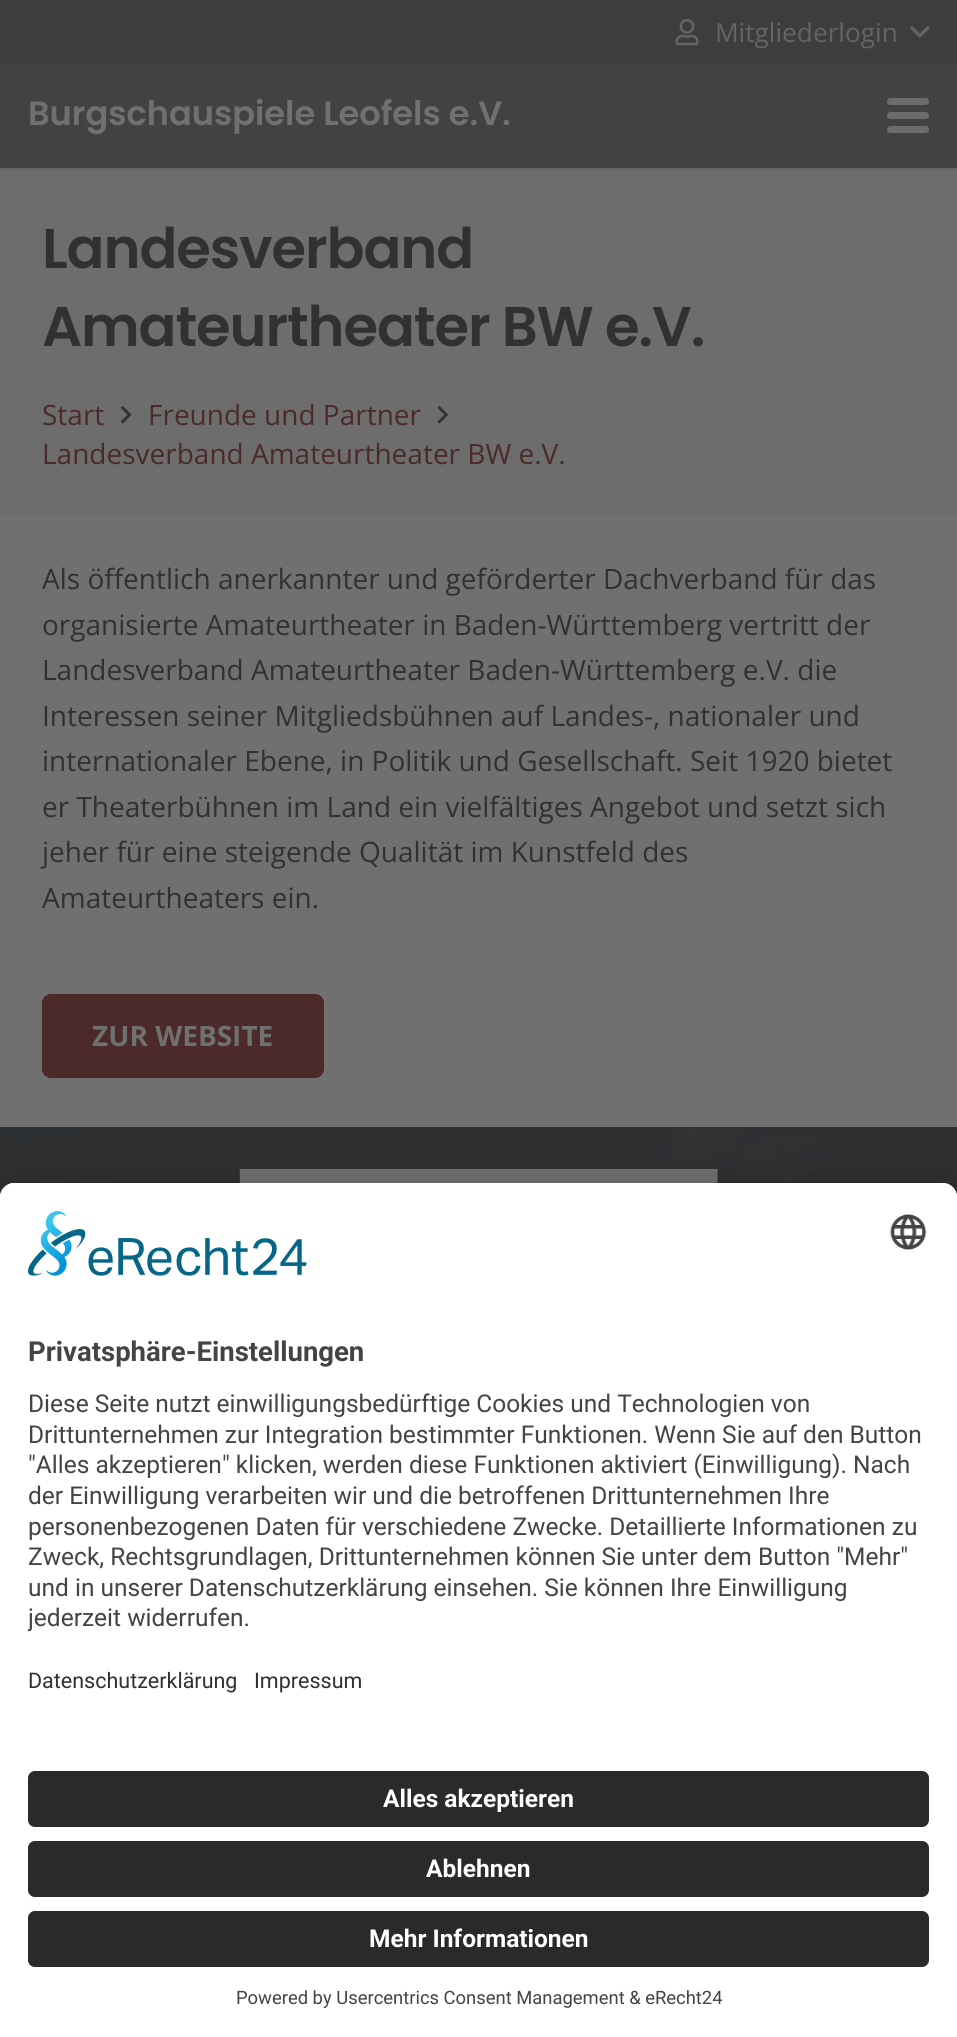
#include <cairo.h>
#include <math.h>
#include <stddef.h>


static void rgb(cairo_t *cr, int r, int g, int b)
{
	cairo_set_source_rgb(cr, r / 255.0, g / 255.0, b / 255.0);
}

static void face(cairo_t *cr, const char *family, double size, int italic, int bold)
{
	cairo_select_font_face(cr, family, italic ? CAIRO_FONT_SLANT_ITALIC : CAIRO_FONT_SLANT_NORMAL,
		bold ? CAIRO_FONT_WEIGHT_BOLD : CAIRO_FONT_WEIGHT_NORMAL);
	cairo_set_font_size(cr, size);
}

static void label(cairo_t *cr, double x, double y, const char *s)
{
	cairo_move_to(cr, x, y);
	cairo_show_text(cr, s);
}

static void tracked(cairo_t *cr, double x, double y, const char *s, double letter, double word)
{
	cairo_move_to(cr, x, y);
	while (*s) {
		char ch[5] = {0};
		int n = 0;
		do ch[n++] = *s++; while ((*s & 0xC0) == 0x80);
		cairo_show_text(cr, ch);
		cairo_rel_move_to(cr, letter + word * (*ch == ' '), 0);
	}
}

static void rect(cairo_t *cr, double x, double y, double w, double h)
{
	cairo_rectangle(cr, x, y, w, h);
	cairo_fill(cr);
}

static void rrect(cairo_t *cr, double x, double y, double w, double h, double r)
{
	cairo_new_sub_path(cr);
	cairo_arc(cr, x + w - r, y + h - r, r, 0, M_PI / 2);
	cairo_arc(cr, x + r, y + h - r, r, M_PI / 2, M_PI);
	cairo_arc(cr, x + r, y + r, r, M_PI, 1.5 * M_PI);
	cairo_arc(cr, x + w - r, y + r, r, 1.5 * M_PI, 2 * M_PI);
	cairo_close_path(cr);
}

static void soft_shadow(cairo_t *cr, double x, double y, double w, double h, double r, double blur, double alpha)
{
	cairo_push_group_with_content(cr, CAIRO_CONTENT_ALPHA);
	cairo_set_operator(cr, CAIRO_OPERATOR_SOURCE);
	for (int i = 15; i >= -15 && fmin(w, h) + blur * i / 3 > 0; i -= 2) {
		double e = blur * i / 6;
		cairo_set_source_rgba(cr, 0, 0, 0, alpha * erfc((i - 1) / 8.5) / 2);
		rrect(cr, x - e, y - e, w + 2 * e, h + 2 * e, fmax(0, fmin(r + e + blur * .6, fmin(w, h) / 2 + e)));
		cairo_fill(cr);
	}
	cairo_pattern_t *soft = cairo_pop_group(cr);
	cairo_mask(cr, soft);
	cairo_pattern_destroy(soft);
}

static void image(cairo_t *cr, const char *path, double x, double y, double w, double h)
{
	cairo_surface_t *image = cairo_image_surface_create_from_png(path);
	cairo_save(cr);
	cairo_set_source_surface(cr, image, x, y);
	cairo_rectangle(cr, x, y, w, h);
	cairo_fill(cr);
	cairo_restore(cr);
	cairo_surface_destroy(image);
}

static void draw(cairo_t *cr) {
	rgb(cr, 112, 112, 112);
	cairo_paint(cr);
	rgb(cr, 61, 61, 61);
	rect(cr, 0, 0, 957, 63);
	image(cr, "image0.png", 675, 19, 24, 27);
	face(cr, "Open Sans", 26.25, 0, 0);
	rgb(cr, 99, 101, 101);
	label(cr, 715, 42, "Mitgliederlogin");
	image(cr, "image1.png", 910, 26, 20, 12);
	rgb(cr, 103, 103, 103);
	rect(cr, 0, 168, 957, 2);
	rgb(cr, 66, 66, 66);
	rect(cr, 0, 63, 957, 105);
	face(cr, "Poppins SemiBold", 33.6, 0, 0);
	rgb(cr, 112, 112, 112);
	label(cr, 28, 125, "Burgschauspiele Leofels e.V.");
	rgb(cr, 107, 108, 108);
	rrect(cr, 887, 112, 42, 7, 3.5);
	cairo_fill(cr);
	rrect(cr, 887, 98, 42, 7, 3.5);
	cairo_fill(cr);
	rrect(cr, 887, 126, 42, 7, 3.5);
	cairo_fill(cr);
	rgb(cr, 109, 109, 109);
	rect(cr, 0, 170, 957, 345);
	face(cr, "Poppins SemiBold", 56, 0, 0);
	rgb(cr, 49, 49, 52);
	tracked(cr, 42, 268, "Landesverband", -1.1, 0);
	tracked(cr, 42, 346, "Amateurtheater BW e.V.", -1.1, 0);
	face(cr, "Open Sans", 28, 0, 0);
	rgb(cr, 75, 42, 41);
	label(cr, 42, 425, "Start");
	image(cr, "image2.png", 120, 406, 12, 18);
	label(cr, 148, 425, "Freunde und Partner");
	image(cr, "image3.png", 437, 406, 11, 18);
	label(cr, 42, 464, "Landesverband Amateurtheater BW e.V.");
	rgb(cr, 49, 49, 52);
	label(cr, 42, 589, "Als öffentlich anerkannter und geförderter Dachverband für das");
	label(cr, 42, 635, "organisierte Amateurtheater in Baden-Württemberg vertritt der");
	label(cr, 42, 680, "Landesverband Amateurtheater Baden-Württemberg e.V. die");
	label(cr, 42, 726, "Interessen seiner Mitgliedsbühnen auf Landes-, nationaler und");
	label(cr, 42, 771, "internationaler Ebene, in Politik und Gesellschaft. Seit 1920 bietet");
	label(cr, 42, 817, "er Theaterbühnen im Land ein vielfältiges Angebot und setzt sich");
	label(cr, 42, 862, "jeher für eine steigende Qualität im Kunstfeld des");
	label(cr, 42, 908, "Amateurtheaters ein.");
	rgb(cr, 75, 42, 41);
	rrect(cr, 42, 994, 282, 84, 9);
	cairo_fill(cr);
	face(cr, "Open Sans", 28, 0, 1);
	rgb(cr, 112, 112, 112);
	label(cr, 92, 1046, "ZUR WEBSITE");
	image(cr, "image4.png", 0, 1127, 957, 70);
	image(cr, "image5.png", 239, 1169, 479, 14);
	rgb(cr, 0, 0, 0);
	soft_shadow(cr, 0, 1218, 957, 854, 14, 24.5, 0.3);
	soft_shadow(cr, 0, 1192, 957, 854, 14, 23, 0.22);
	rgb(cr, 255, 255, 255);
	cairo_new_path(cr);
	cairo_move_to(cr, 14, 1183);
	cairo_line_to(cr, 943, 1183);
	cairo_curve_to(cr, 950.5, 1183, 957, 1189.5, 957, 1197);
	cairo_line_to(cr, 957, 2037);
	cairo_line_to(cr, 0, 2037);
	cairo_line_to(cr, 0, 1197);
	cairo_curve_to(cr, 0, 1189.5, 6.5, 1183, 14, 1183);
	cairo_close_path(cr);
	cairo_fill(cr);
	cairo_new_path(cr);
	cairo_move_to(cr, 14, 1183);
	cairo_line_to(cr, 943, 1183);
	cairo_curve_to(cr, 950.5, 1183, 957, 1189.5, 957, 1197);
	cairo_line_to(cr, 957, 1750);
	cairo_line_to(cr, 0, 1750);
	cairo_line_to(cr, 0, 1197);
	cairo_curve_to(cr, 0, 1189.5, 6.5, 1183, 14, 1183);
	cairo_close_path(cr);
	cairo_fill(cr);
	image(cr, "image6.png", 28, 1211, 279, 65);
	image(cr, "image7.png", 890, 1214, 37, 36);
	face(cr, "Roboto", 27.5, 0, 1);
	rgb(cr, 68, 68, 68);
	label(cr, 28, 1361, "Privatsphäre-Einstellungen");
	face(cr, "Roboto", 24.5, 0, 0);
	label(cr, 28, 1412, "Diese Seite nutzt einwilligungsbedürftige Cookies und Technologien von");
	label(cr, 28, 1443, "Drittunternehmen zur Integration bestimmter Funktionen. Wenn Sie auf den Button");
	label(cr, 28, 1473, "\"Alles akzeptieren\" klicken, werden diese Funktionen aktiviert (Einwilligung). Nach");
	label(cr, 28, 1504, "der Einwilligung verarbeiten wir und die betroffenen Drittunternehmen Ihre");
	label(cr, 28, 1535, "personenbezogenen Daten für verschiedene Zwecke. Detaillierte Informationen zu");
	label(cr, 28, 1565, "Zweck, Rechtsgrundlagen, Drittunternehmen können Sie unter dem Button \"Mehr\"");
	label(cr, 28, 1596, "und in unserer Datenschutzerklärung einsehen. Sie können Ihre Einwilligung");
	cairo_save(cr);
	cairo_rectangle(cr, 28, 1383, 901, 259);
	cairo_clip(cr);
	label(cr, 28, 1626, "jederzeit widerrufen.");
	cairo_restore(cr);
	face(cr, "Roboto", 21.5, 0, 0);
	rgb(cr, 49, 49, 52);
	label(cr, 28, 1688, "Datenschutzerklärung");
	label(cr, 254, 1688, "Impressum");
	rgb(cr, 41, 42, 43);
	rrect(cr, 28, 1771, 901, 56, 7);
	cairo_fill(cr);
	face(cr, "Roboto", 24.5, 0, 1);
	rgb(cr, 255, 255, 255);
	label(cr, 383, 1807, "Alles akzeptieren");
	rgb(cr, 41, 42, 43);
	rrect(cr, 28, 1841, 901, 56, 7);
	cairo_fill(cr);
	rgb(cr, 255, 255, 255);
	label(cr, 426, 1877, "Ablehnen");
	rgb(cr, 41, 42, 43);
	rrect(cr, 28, 1911, 901, 56, 7);
	cairo_fill(cr);
	rgb(cr, 255, 255, 255);
	label(cr, 369, 1947, "Mehr Informationen");
	face(cr, "Roboto", 18.4, 0, 0);
	rgb(cr, 68, 68, 68);
	label(cr, 236, 2004, "Powered by Usercentrics Consent Management & eRecht24");
}

int main(void) {
	cairo_surface_t *surface = cairo_image_surface_create(CAIRO_FORMAT_RGB24, 957, 2037);
	cairo_t *cr = cairo_create(surface);
	cairo_font_options_t *options = cairo_font_options_create();
	cairo_font_options_set_hint_metrics(options, CAIRO_HINT_METRICS_OFF);
	cairo_font_options_set_hint_style(options, CAIRO_HINT_STYLE_NONE);
	cairo_set_font_options(cr, options);
	cairo_set_miter_limit(cr, 4);
	draw(cr);
	cairo_surface_write_to_png(surface, "render.png");
	cairo_font_options_destroy(options);
	cairo_destroy(cr);
	cairo_surface_destroy(surface);
	return 0;
}
